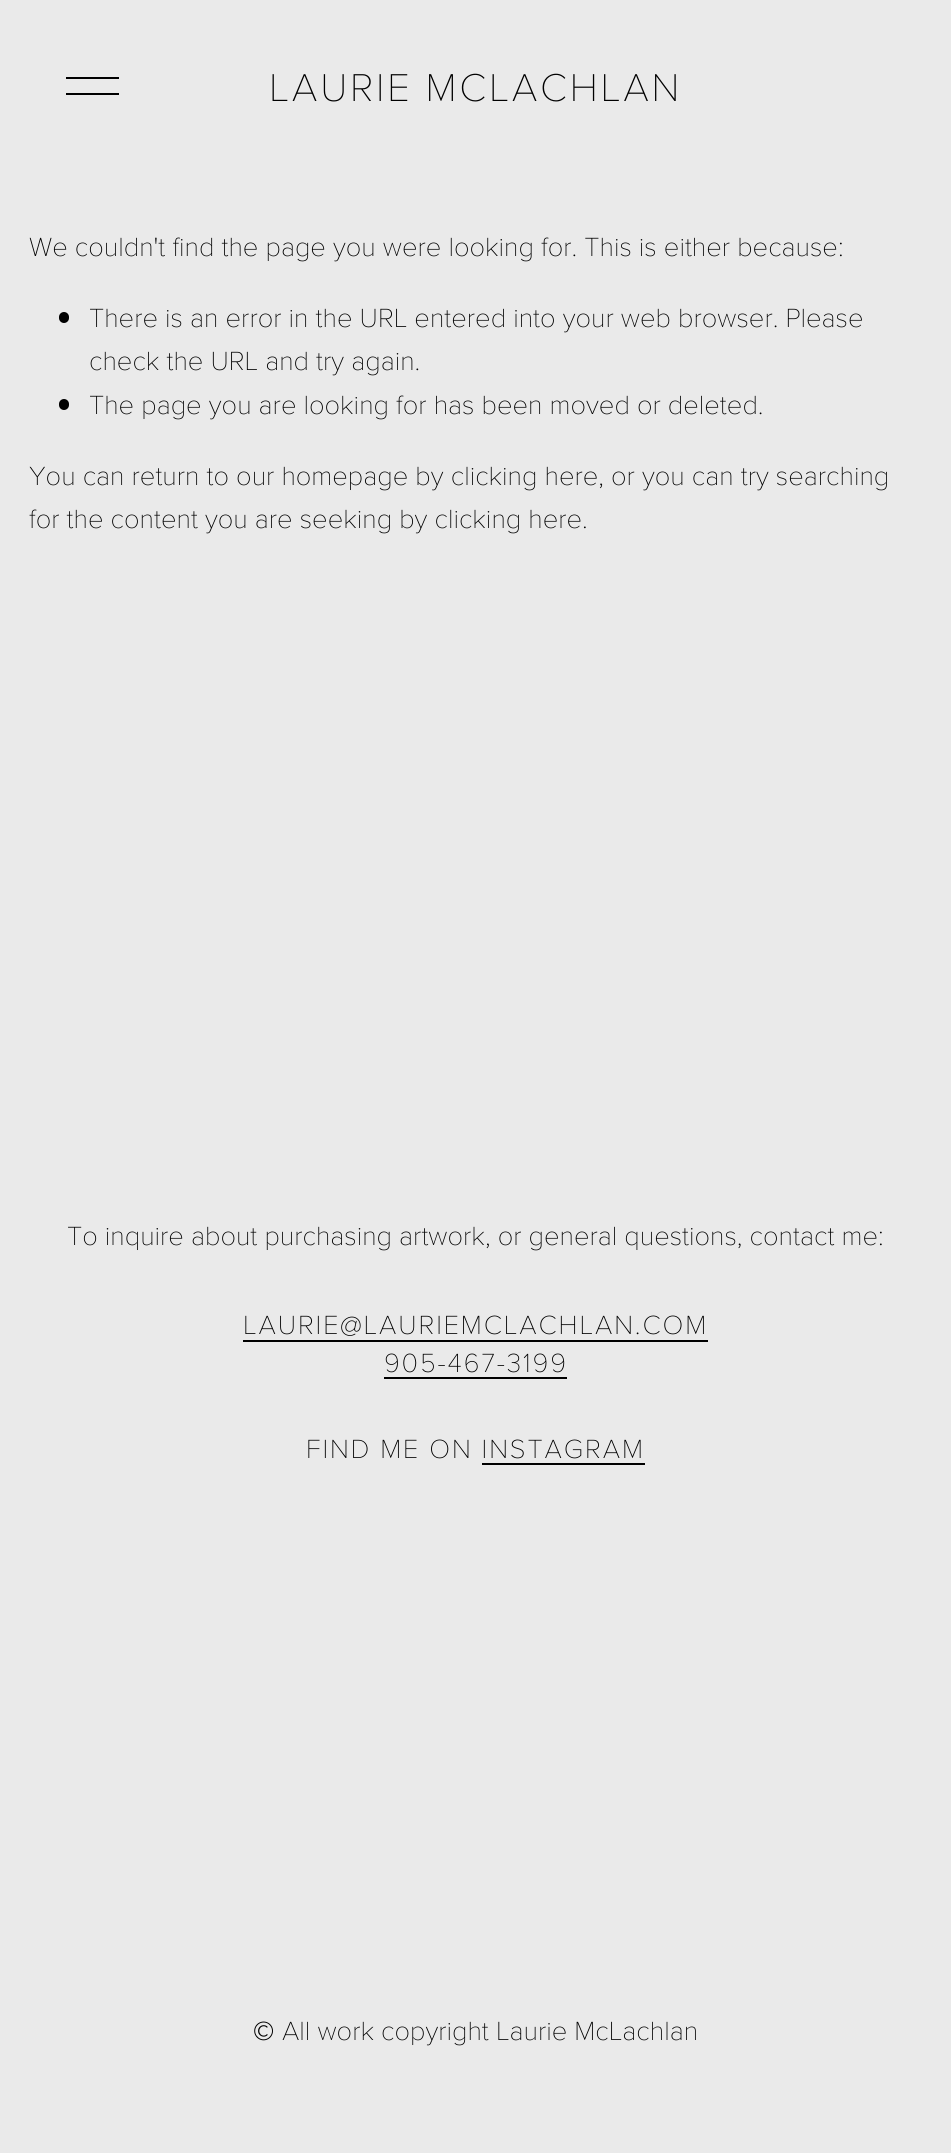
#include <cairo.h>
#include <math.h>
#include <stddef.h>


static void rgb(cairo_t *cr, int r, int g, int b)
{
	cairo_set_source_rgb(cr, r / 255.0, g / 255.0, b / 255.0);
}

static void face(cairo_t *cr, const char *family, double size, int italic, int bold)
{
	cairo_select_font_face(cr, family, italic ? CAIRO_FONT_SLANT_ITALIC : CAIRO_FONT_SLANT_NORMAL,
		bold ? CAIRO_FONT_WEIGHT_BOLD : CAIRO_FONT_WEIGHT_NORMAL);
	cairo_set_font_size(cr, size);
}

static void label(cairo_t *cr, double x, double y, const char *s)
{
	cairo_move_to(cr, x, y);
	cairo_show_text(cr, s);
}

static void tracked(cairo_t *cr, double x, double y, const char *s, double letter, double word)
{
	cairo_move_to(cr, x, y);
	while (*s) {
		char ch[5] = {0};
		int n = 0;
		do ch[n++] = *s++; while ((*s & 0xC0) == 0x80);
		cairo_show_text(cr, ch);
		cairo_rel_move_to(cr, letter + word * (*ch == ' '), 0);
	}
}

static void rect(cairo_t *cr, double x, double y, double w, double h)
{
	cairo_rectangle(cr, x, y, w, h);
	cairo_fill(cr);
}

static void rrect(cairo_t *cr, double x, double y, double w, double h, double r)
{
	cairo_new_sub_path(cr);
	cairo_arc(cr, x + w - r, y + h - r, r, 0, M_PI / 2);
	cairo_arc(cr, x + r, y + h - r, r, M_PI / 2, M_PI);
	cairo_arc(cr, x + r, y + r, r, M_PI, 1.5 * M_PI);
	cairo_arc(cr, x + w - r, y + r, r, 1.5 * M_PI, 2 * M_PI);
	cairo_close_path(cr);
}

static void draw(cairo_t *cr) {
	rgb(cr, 234, 234, 234);
	cairo_paint(cr);
	rgb(cr, 0, 0, 0);
	rect(cr, 66, 77, 53, 2);
	rect(cr, 66, 93, 53, 2);
	face(cr, "Proxima Nova Thin", 40.25, 0, 0);
	tracked(cr, 269, 101, "LAURIE MCLACHLAN", 2.75, 0);
	face(cr, "Proxima Nova Thin", 27.25, 0, 0);
	label(cr, 29, 256, "We couldn't find the page you were looking for. This is either because:");
	rrect(cr, 59, 312, 10, 11, 5);
	cairo_fill(cr);
	label(cr, 89, 327, "There is an error in the URL entered into your web browser. Please");
	label(cr, 89, 370, "check the URL and try again.");
	rrect(cr, 59, 399, 10, 11, 5);
	cairo_fill(cr);
	label(cr, 89, 414, "The page you are looking for has been moved or deleted.");
	label(cr, 29, 485, "You can return to our homepage by clicking here, or you can try searching");
	label(cr, 29, 528, "for the content you are seeking by clicking here.");
	label(cr, 67, 1245, "To inquire about purchasing artwork, or general questions, contact me:");
	tracked(cr, 243, 1334, "LAURIE@LAURIEMCLACHLAN.COM", 1.9, 0);
	rect(cr, 243, 1340, 465, 2);
	tracked(cr, 384, 1372, "905-467-3199", 1.9, 0);
	rect(cr, 384, 1377, 183, 2);
	tracked(cr, 306, 1458, "FIND ME ON INSTAGRAM", 1.9, 0);
	rect(cr, 482, 1463, 163, 2);
	face(cr, "Proxima Nova", 27.25, 0, 1);
	label(cr, 253, 2040, "©");
	face(cr, "Proxima Nova Thin", 27.25, 0, 0);
	label(cr, 282, 2040, "All work copyright Laurie McLachlan");
}

int main(void) {
	cairo_surface_t *surface = cairo_image_surface_create(CAIRO_FORMAT_RGB24, 951, 2153);
	cairo_t *cr = cairo_create(surface);
	cairo_font_options_t *options = cairo_font_options_create();
	cairo_font_options_set_hint_metrics(options, CAIRO_HINT_METRICS_OFF);
	cairo_font_options_set_hint_style(options, CAIRO_HINT_STYLE_NONE);
	cairo_set_font_options(cr, options);
	cairo_set_miter_limit(cr, 4);
	draw(cr);
	cairo_surface_write_to_png(surface, "render.png");
	cairo_font_options_destroy(options);
	cairo_destroy(cr);
	cairo_surface_destroy(surface);
	return 0;
}
